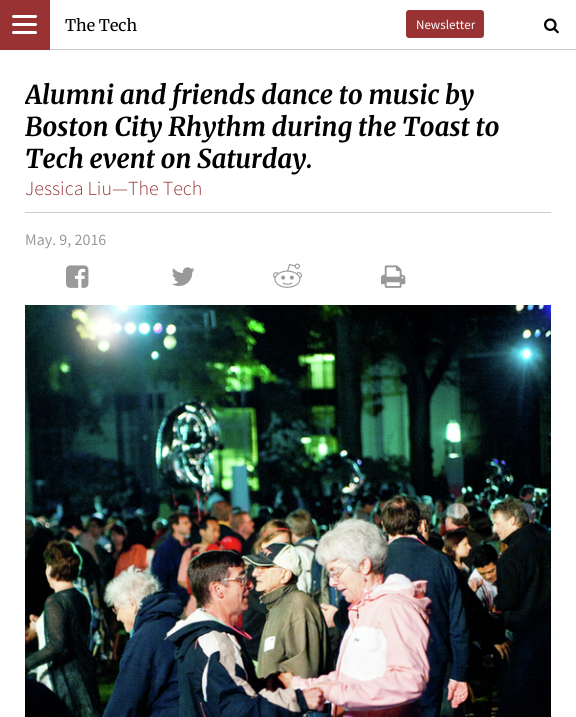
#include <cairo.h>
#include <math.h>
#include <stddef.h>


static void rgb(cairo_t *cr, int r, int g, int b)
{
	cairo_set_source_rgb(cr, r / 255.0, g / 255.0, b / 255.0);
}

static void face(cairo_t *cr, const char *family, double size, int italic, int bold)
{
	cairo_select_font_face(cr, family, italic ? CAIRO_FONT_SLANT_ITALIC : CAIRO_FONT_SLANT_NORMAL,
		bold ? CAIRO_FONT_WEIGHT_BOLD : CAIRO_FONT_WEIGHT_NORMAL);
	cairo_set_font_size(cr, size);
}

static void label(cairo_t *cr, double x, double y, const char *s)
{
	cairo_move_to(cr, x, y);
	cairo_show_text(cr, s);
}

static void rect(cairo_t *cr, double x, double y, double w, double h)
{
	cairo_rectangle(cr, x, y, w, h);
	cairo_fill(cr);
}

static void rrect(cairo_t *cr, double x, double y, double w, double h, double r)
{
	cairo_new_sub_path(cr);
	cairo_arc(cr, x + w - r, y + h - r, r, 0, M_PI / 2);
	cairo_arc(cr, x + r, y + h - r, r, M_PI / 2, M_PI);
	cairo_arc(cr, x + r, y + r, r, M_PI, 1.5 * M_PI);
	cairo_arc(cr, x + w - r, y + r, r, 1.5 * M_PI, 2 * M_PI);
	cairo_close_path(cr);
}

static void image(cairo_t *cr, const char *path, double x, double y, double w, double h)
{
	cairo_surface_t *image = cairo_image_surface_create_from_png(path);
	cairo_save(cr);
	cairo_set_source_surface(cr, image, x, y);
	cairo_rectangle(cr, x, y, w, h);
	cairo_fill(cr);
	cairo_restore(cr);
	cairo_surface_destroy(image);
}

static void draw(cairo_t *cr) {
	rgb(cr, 255, 255, 255);
	cairo_paint(cr);
	rgb(cr, 204, 204, 204);
	rect(cr, 50, 49, 526, 1);
	rgb(cr, 153, 51, 51);
	rect(cr, 0, 0, 50, 50);
	rgb(cr, 255, 255, 255);
	rrect(cr, 12, 15, 25, 3, 1.5);
	cairo_fill(cr);
	rrect(cr, 12, 23, 25, 3, 1.5);
	cairo_fill(cr);
	rrect(cr, 12, 31, 25, 3, 1.5);
	cairo_fill(cr);
	face(cr, "Merriweather", 16, 0, 0);
	rgb(cr, 0, 0, 0);
	label(cr, 65, 31, "The Tech");
	rgb(cr, 153, 51, 51);
	rrect(cr, 406, 10, 78, 28, 3);
	cairo_fill(cr);
	face(cr, "Source Sans Pro", 13, 0, 0);
	rgb(cr, 255, 255, 255);
	label(cr, 416, 29, "Newsletter");
	image(cr, "image0.png", 544, 18, 15, 16);
	cairo_save(cr);
	cairo_rectangle(cr, 25, 75, 526, 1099);
	cairo_clip(cr);
	face(cr, "Merriweather", 25.9, 1, 1);
	rgb(cr, 0, 0, 0);
	label(cr, 25, 104, "Alumni and friends dance to music by");
	cairo_restore(cr);
	face(cr, "Merriweather", 25.9, 1, 1);
	rgb(cr, 0, 0, 0);
	label(cr, 25, 136, "Boston City Rhythm during the Toast to");
	label(cr, 25, 168, "Tech event on Saturday.");
	rgb(cr, 204, 204, 204);
	rect(cr, 25, 212, 526, 1);
	face(cr, "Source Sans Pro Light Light", 20, 0, 0);
	rgb(cr, 153, 51, 51);
	label(cr, 25, 195, "Jessica Liu—The Tech");
	face(cr, "Source Sans Pro", 16, 0, 0);
	rgb(cr, 153, 153, 153);
	label(cr, 25, 245, "May. 9, 2016");
	image(cr, "image1.png", 66, 265, 23, 23);
	image(cr, "image2.png", 172, 267, 23, 19);
	image(cr, "image3.png", 273, 263, 29, 25);
	image(cr, "image4.png", 381, 265, 25, 23);
	image(cr, "image5.png", 25, 305, 526, 412);
}

int main(void) {
	cairo_surface_t *surface = cairo_image_surface_create(CAIRO_FORMAT_RGB24, 576, 717);
	cairo_t *cr = cairo_create(surface);
	cairo_font_options_t *options = cairo_font_options_create();
	cairo_font_options_set_hint_metrics(options, CAIRO_HINT_METRICS_OFF);
	cairo_font_options_set_hint_style(options, CAIRO_HINT_STYLE_NONE);
	cairo_set_font_options(cr, options);
	cairo_set_miter_limit(cr, 4);
	draw(cr);
	cairo_surface_write_to_png(surface, "render.png");
	cairo_font_options_destroy(options);
	cairo_destroy(cr);
	cairo_surface_destroy(surface);
	return 0;
}
